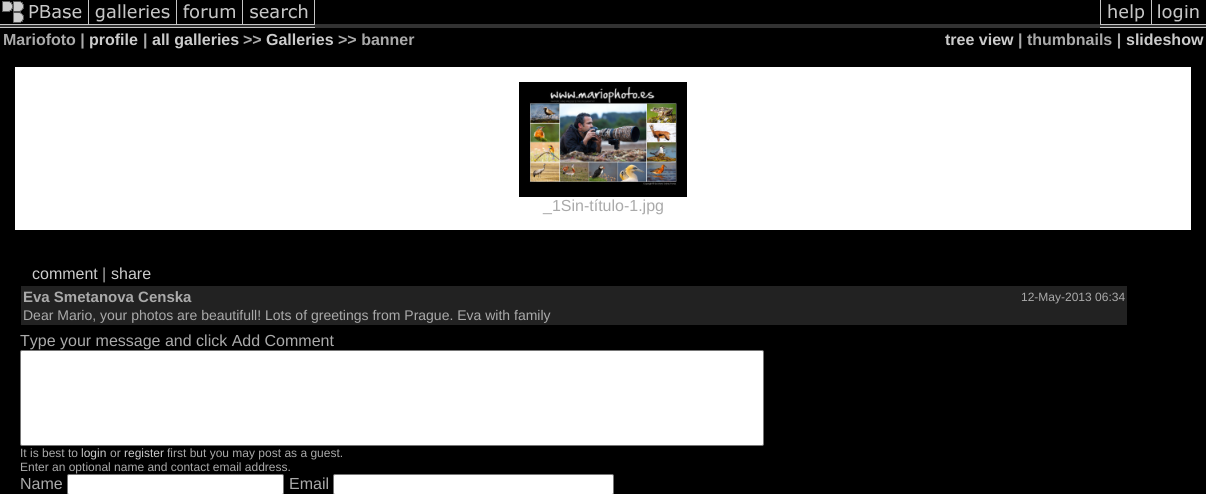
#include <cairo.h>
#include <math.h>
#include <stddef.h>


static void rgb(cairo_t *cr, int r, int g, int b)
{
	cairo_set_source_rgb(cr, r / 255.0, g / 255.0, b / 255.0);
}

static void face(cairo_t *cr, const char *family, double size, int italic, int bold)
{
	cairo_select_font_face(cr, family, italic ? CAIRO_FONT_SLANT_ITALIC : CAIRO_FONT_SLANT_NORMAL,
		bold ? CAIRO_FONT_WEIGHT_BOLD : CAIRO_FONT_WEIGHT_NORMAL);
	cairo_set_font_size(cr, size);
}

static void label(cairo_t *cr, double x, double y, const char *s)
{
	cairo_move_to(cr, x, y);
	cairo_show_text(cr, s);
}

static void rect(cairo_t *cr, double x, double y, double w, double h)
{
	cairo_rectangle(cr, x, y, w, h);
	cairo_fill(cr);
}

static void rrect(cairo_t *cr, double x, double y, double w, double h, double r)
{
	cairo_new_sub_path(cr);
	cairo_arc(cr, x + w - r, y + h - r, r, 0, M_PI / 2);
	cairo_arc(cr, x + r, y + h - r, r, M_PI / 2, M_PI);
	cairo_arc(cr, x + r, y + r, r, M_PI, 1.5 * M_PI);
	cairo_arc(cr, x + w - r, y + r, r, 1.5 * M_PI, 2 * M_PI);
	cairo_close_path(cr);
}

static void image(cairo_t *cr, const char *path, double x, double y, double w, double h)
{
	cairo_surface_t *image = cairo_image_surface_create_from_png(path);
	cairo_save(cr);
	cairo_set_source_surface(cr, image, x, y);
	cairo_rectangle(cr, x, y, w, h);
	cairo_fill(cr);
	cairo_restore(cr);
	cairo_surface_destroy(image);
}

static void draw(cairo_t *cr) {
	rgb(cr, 0, 0, 0);
	cairo_paint(cr);
	image(cr, "image0.png", 0, 0, 89, 28);
	image(cr, "image1.png", 89, 0, 88, 28);
	image(cr, "image2.png", 177, 0, 66, 28);
	image(cr, "image3.png", 243, 0, 72, 28);
	rgb(cr, 50, 50, 50);
	rect(cr, 315, 24, 785, 4);
	image(cr, "image4.png", 1100, 0, 52, 28);
	image(cr, "image5.png", 1152, 4, 54, 24);
	face(cr, "Liberation Sans", 16, 0, 1);
	rgb(cr, 170, 170, 170);
	label(cr, 3, 45, "Mariofoto |");
	rgb(cr, 204, 204, 204);
	label(cr, 89, 45, "profile");
	rgb(cr, 170, 170, 170);
	label(cr, 143, 45, "|");
	rgb(cr, 204, 204, 204);
	label(cr, 152, 45, "all galleries");
	rgb(cr, 170, 170, 170);
	label(cr, 243, 45, ">>");
	rgb(cr, 204, 204, 204);
	label(cr, 266, 45, "Galleries");
	rgb(cr, 170, 170, 170);
	label(cr, 338, 45, ">> banner");
	rgb(cr, 204, 204, 204);
	label(cr, 945, 45, "tree view");
	rgb(cr, 170, 170, 170);
	label(cr, 1018, 45, "| thumbnails |");
	rgb(cr, 204, 204, 204);
	label(cr, 1126, 45, "slideshow");
	rgb(cr, 255, 255, 255);
	rect(cr, 15, 67, 1176, 163);
	cairo_rectangle(cr, 521, 84, 164, 111);
	rgb(cr, 0, 0, 0);
	cairo_set_line_width(cr, 4);
	cairo_stroke(cr);
	image(cr, "image6.png", 523, 86, 160, 107);
	face(cr, "Liberation Sans", 16, 0, 0);
	rgb(cr, 170, 170, 170);
	label(cr, 543, 211, "_1Sin-título-1.jpg");
	rgb(cr, 204, 204, 204);
	label(cr, 32, 279, "comment");
	rgb(cr, 170, 170, 170);
	label(cr, 102, 279, "|");
	rgb(cr, 204, 204, 204);
	label(cr, 111, 279, "share");
	rgb(cr, 34, 34, 34);
	rect(cr, 21, 286, 1106, 39);
	face(cr, "Liberation Sans", 15, 0, 1);
	rgb(cr, 170, 170, 170);
	label(cr, 23, 302, "Eva Smetanova Censka");
	face(cr, "Liberation Sans", 12, 0, 0);
	label(cr, 1021, 301, "12-May-2013 06:34");
	face(cr, "Liberation Sans", 14, 0, 0);
	label(cr, 23, 320, "Dear Mario, your photos are beautifull! Lots of greetings from Prague. Eva with family");
	face(cr, "Liberation Sans", 16, 0, 0);
	label(cr, 20, 346, "Type your message and click Add Comment");
	rgb(cr, 255, 255, 255);
	rrect(cr, 20.5, 350.5, 743, 95, 1.5);
	cairo_fill_preserve(cr);
	rgb(cr, 118, 118, 118);
	cairo_set_line_width(cr, 1);
	cairo_stroke(cr);
	face(cr, "Liberation Sans", 12, 0, 0);
	rgb(cr, 170, 170, 170);
	label(cr, 20, 457, "It is best to");
	rgb(cr, 204, 204, 204);
	label(cr, 81, 457, "login");
	rgb(cr, 170, 170, 170);
	label(cr, 110, 457, "or");
	rgb(cr, 204, 204, 204);
	label(cr, 124, 457, "register");
	rgb(cr, 170, 170, 170);
	label(cr, 167, 457, "first but you may post as a guest.");
	label(cr, 20, 471, "Enter an optional name and contact email address.");
	face(cr, "Liberation Sans", 16, 0, 0);
	label(cr, 20, 489, "Name");
	rgb(cr, 255, 255, 255);
	rrect(cr, 67.5, 474.5, 216, 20, 1.5);
	cairo_fill_preserve(cr);
	rgb(cr, 118, 118, 118);
	cairo_stroke(cr);
	rgb(cr, 170, 170, 170);
	label(cr, 289, 489, "Email");
	rgb(cr, 255, 255, 255);
	rrect(cr, 333.5, 474.5, 280, 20, 1.5);
	cairo_fill_preserve(cr);
	rgb(cr, 118, 118, 118);
	cairo_stroke(cr);
}

int main(void) {
	cairo_surface_t *surface = cairo_image_surface_create(CAIRO_FORMAT_RGB24, 1206, 494);
	cairo_t *cr = cairo_create(surface);
	cairo_font_options_t *options = cairo_font_options_create();
	cairo_font_options_set_hint_metrics(options, CAIRO_HINT_METRICS_OFF);
	cairo_font_options_set_hint_style(options, CAIRO_HINT_STYLE_NONE);
	cairo_set_font_options(cr, options);
	cairo_set_miter_limit(cr, 4);
	draw(cr);
	cairo_surface_write_to_png(surface, "render.png");
	cairo_font_options_destroy(options);
	cairo_destroy(cr);
	cairo_surface_destroy(surface);
	return 0;
}
